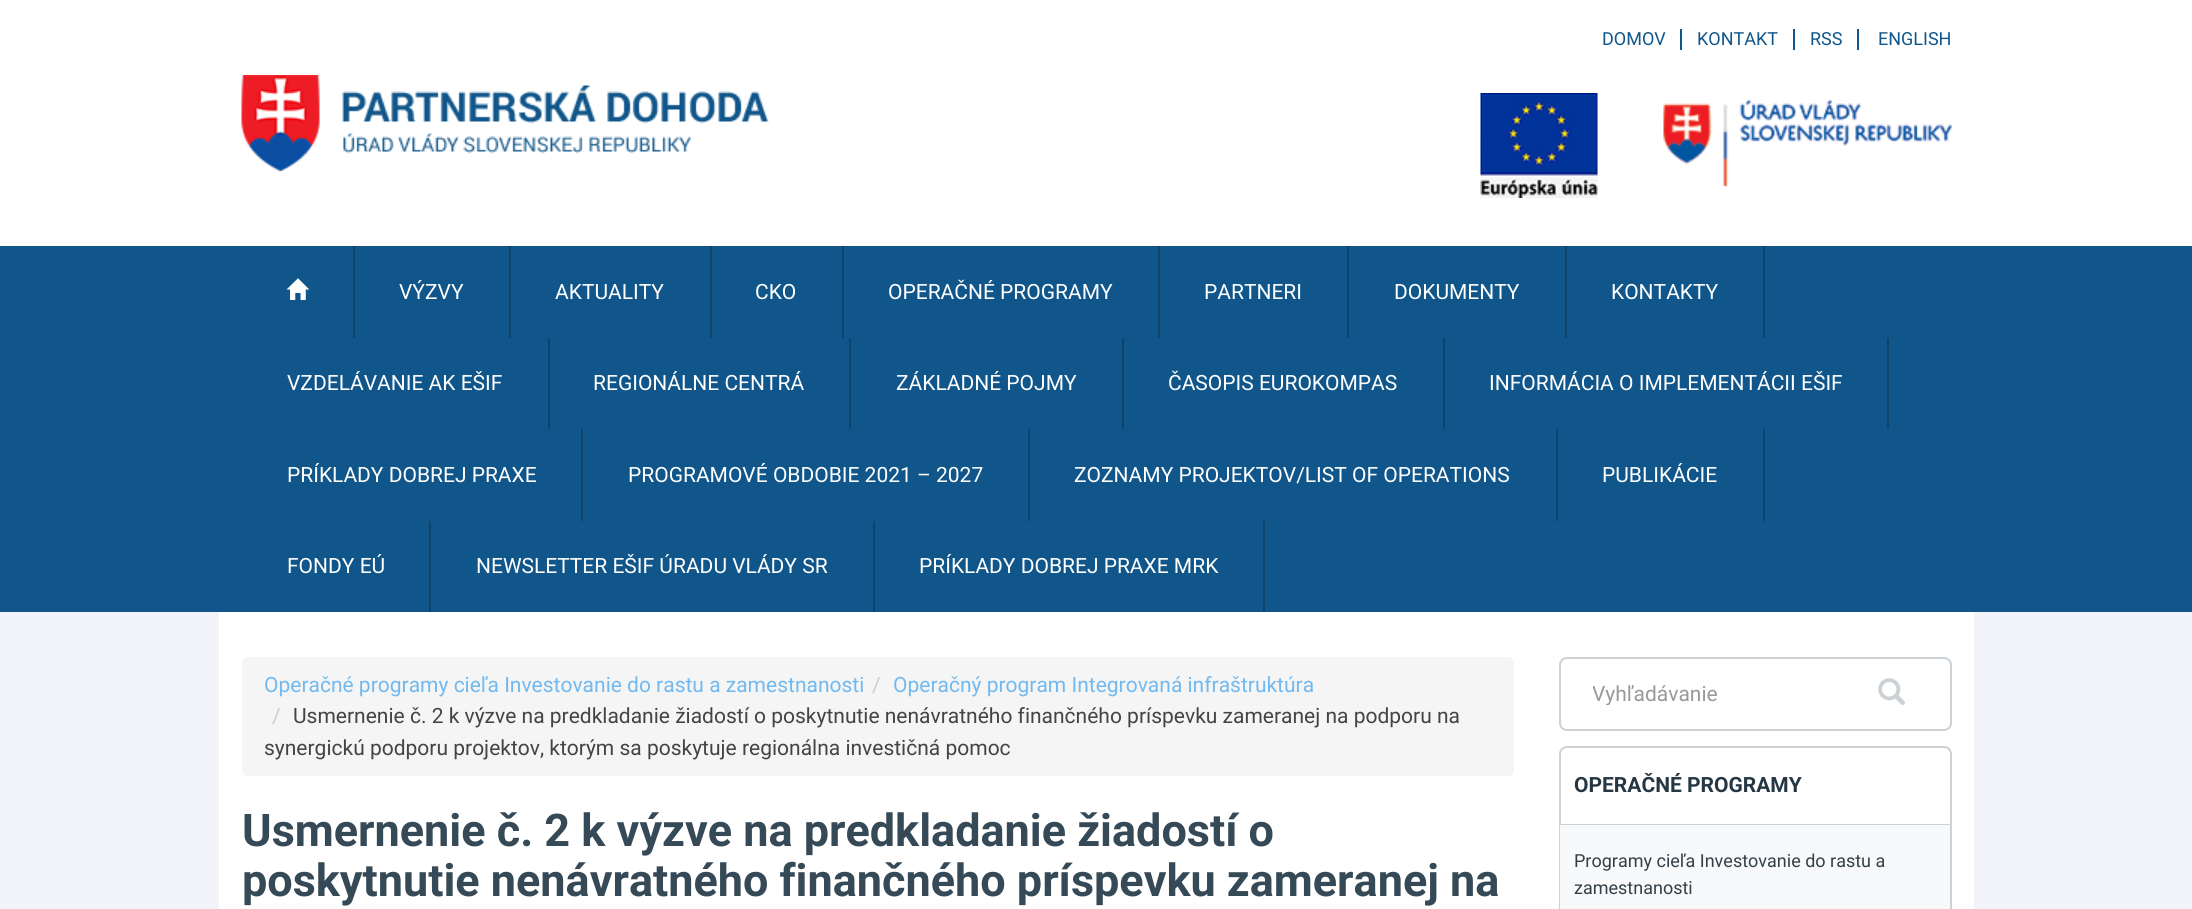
#include <cairo.h>
#include <math.h>
#include <stddef.h>


static void rgb(cairo_t *cr, int r, int g, int b)
{
	cairo_set_source_rgb(cr, r / 255.0, g / 255.0, b / 255.0);
}

static void face(cairo_t *cr, const char *family, double size, int italic, int bold)
{
	cairo_select_font_face(cr, family, italic ? CAIRO_FONT_SLANT_ITALIC : CAIRO_FONT_SLANT_NORMAL,
		bold ? CAIRO_FONT_WEIGHT_BOLD : CAIRO_FONT_WEIGHT_NORMAL);
	cairo_set_font_size(cr, size);
}

static void label(cairo_t *cr, double x, double y, const char *s)
{
	cairo_move_to(cr, x, y);
	cairo_show_text(cr, s);
}

static void rect(cairo_t *cr, double x, double y, double w, double h)
{
	cairo_rectangle(cr, x, y, w, h);
	cairo_fill(cr);
}

static void rrect(cairo_t *cr, double x, double y, double w, double h, double r)
{
	cairo_new_sub_path(cr);
	cairo_arc(cr, x + w - r, y + h - r, r, 0, M_PI / 2);
	cairo_arc(cr, x + r, y + h - r, r, M_PI / 2, M_PI);
	cairo_arc(cr, x + r, y + r, r, M_PI, 1.5 * M_PI);
	cairo_arc(cr, x + w - r, y + r, r, 1.5 * M_PI, 2 * M_PI);
	cairo_close_path(cr);
}

static void image(cairo_t *cr, const char *path, double x, double y, double w, double h)
{
	cairo_surface_t *image = cairo_image_surface_create_from_png(path);
	cairo_save(cr);
	cairo_set_source_surface(cr, image, x, y);
	cairo_rectangle(cr, x, y, w, h);
	cairo_fill(cr);
	cairo_restore(cr);
	cairo_surface_destroy(image);
}

static void draw(cairo_t *cr) {
	rgb(cr, 242, 244, 249);
	cairo_paint(cr);
	rgb(cr, 255, 255, 255);
	rect(cr, 0, 0, 2192, 246);
	face(cr, "Roboto", 18, 0, 0);
	rgb(cr, 16, 86, 138);
	label(cr, 1602, 45, "DOMOV");
	rect(cr, 1680, 29, 2, 21);
	label(cr, 1697, 45, "KONTAKT");
	rect(cr, 1793, 29, 2, 21);
	label(cr, 1810, 45, "RSS");
	rect(cr, 1857, 29, 2, 21);
	label(cr, 1878, 45, "ENGLISH");
	image(cr, "image0.png", 1480, 93, 118, 105);
	image(cr, "image1.png", 1663, 100, 289, 87);
	image(cr, "image2.png", 241, 75, 528, 96);
	rect(cr, 0, 246, 2192, 366);
	rgb(cr, 13, 68, 109);
	rect(cr, 353, 246, 2, 92);
	image(cr, "image3.png", 286, 278, 23, 22);
	rect(cr, 509, 246, 2, 92);
	face(cr, "Roboto", 21, 0, 0);
	rgb(cr, 255, 255, 255);
	label(cr, 399, 299, "VÝZVY");
	rgb(cr, 13, 68, 109);
	rect(cr, 710, 246, 2, 92);
	rgb(cr, 255, 255, 255);
	label(cr, 555, 299, "AKTUALITY");
	rgb(cr, 13, 68, 109);
	rect(cr, 842, 246, 2, 92);
	rgb(cr, 255, 255, 255);
	label(cr, 755, 299, "CKO");
	rgb(cr, 13, 68, 109);
	rect(cr, 1158, 246, 2, 92);
	rgb(cr, 255, 255, 255);
	label(cr, 888, 299, "OPERAČNÉ PROGRAMY");
	rgb(cr, 13, 68, 109);
	rect(cr, 1347, 246, 2, 92);
	rgb(cr, 255, 255, 255);
	label(cr, 1204, 299, "PARTNERI");
	rgb(cr, 13, 68, 109);
	rect(cr, 1565, 246, 2, 92);
	rgb(cr, 255, 255, 255);
	label(cr, 1394, 299, "DOKUMENTY");
	rgb(cr, 13, 68, 109);
	rect(cr, 1763, 246, 2, 92);
	rgb(cr, 255, 255, 255);
	label(cr, 1611, 299, "KONTAKTY");
	rgb(cr, 13, 68, 109);
	rect(cr, 548, 338, 2, 91);
	rgb(cr, 255, 255, 255);
	label(cr, 287, 390, "VZDELÁVANIE AK EŠIF");
	rgb(cr, 13, 68, 109);
	rect(cr, 849, 338, 2, 91);
	rgb(cr, 255, 255, 255);
	label(cr, 593, 390, "REGIONÁLNE CENTRÁ");
	rgb(cr, 13, 68, 109);
	rect(cr, 1122, 338, 2, 91);
	rgb(cr, 255, 255, 255);
	label(cr, 896, 390, "ZÁKLADNÉ POJMY");
	rgb(cr, 13, 68, 109);
	rect(cr, 1443, 338, 2, 91);
	rgb(cr, 255, 255, 255);
	label(cr, 1168, 390, "ČASOPIS EUROKOMPAS");
	rgb(cr, 13, 68, 109);
	rect(cr, 1887, 338, 2, 91);
	rgb(cr, 255, 255, 255);
	label(cr, 1489, 390, "INFORMÁCIA O IMPLEMENTÁCII EŠIF");
	rgb(cr, 13, 68, 109);
	rect(cr, 581, 429, 2, 92);
	rgb(cr, 255, 255, 255);
	label(cr, 287, 482, "PRÍKLADY DOBREJ PRAXE");
	rgb(cr, 13, 68, 109);
	rect(cr, 1028, 429, 2, 92);
	rgb(cr, 255, 255, 255);
	label(cr, 628, 482, "PROGRAMOVÉ OBDOBIE 2021 – 2027");
	rgb(cr, 13, 68, 109);
	rect(cr, 1556, 429, 2, 92);
	rgb(cr, 255, 255, 255);
	label(cr, 1074, 482, "ZOZNAMY PROJEKTOV/LIST OF OPERATIONS");
	rgb(cr, 13, 68, 109);
	rect(cr, 1763, 429, 2, 92);
	rgb(cr, 255, 255, 255);
	label(cr, 1602, 482, "PUBLIKÁCIE");
	rgb(cr, 13, 68, 109);
	rect(cr, 429, 521, 2, 91);
	rgb(cr, 255, 255, 255);
	label(cr, 287, 573, "FONDY EÚ");
	rgb(cr, 13, 68, 109);
	rect(cr, 873, 521, 2, 91);
	rgb(cr, 255, 255, 255);
	label(cr, 476, 573, "NEWSLETTER EŠIF ÚRADU VLÁDY SR");
	rgb(cr, 13, 68, 109);
	rect(cr, 1263, 521, 2, 91);
	rgb(cr, 255, 255, 255);
	label(cr, 919, 573, "PRÍKLADY DOBREJ PRAXE MRK");
	rect(cr, 219, 612, 1755, 297);
	rgb(cr, 245, 245, 245);
	rrect(cr, 242, 657, 1272, 119, 6);
	cairo_fill(cr);
	rgb(cr, 113, 185, 239);
	label(cr, 264, 692, "Operačné programy cieľa Investovanie do rastu a zamestnanosti");
	rgb(cr, 204, 204, 204);
	label(cr, 872, 692, "/");
	rgb(cr, 113, 185, 239);
	label(cr, 893, 692, "Operačný program Integrovaná infraštruktúra");
	rgb(cr, 204, 204, 204);
	label(cr, 272, 723, "/");
	rgb(cr, 68, 68, 68);
	label(cr, 293, 723, "Usmernenie č. 2 k výzve na predkladanie žiadostí o poskytnutie nenávratného finančného príspevku zameranej na podporu na");
	label(cr, 264, 755, "synergickú podporu projektov, ktorým sa poskytuje regionálna investičná pomoc");
	face(cr, "Roboto", 45, 0, 1);
	rgb(cr, 53, 73, 86);
	label(cr, 242, 846, "Usmernenie č. 2 k výzve na predkladanie žiadostí o");
	label(cr, 242, 896, "poskytnutie nenávratného finančného príspevku zameranej na");
	rrect(cr, 1560, 658, 391, 72, 7);
	rgb(cr, 203, 209, 213);
	cairo_stroke(cr);
	cairo_save(cr);
	cairo_rectangle(cr, 1593, 681, 222, 24);
	cairo_clip(cr);
	face(cr, "Roboto", 21, 0, 0);
	rgb(cr, 153, 153, 153);
	label(cr, 1592, 701, "Vyhľadávanie");
	cairo_restore(cr);
	image(cr, "image4.png", 1878, 678, 28, 28);
	rrect(cr, 1560, 747, 391, 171, 7);
	cairo_stroke(cr);
	rect(cr, 1560, 824, 390, 1);
	face(cr, "Roboto", 21, 0, 1);
	rgb(cr, 38, 55, 68);
	label(cr, 1574, 792, "OPERAČNÉ PROGRAMY");
	rgb(cr, 248, 249, 250);
	rect(cr, 1560, 825, 390, 84);
	face(cr, "Roboto", 18, 0, 0);
	rgb(cr, 52, 64, 72);
	label(cr, 1574, 867, "Programy cieľa Investovanie do rastu a");
	label(cr, 1574, 894, "zamestnanosti");
}

int main(void) {
	cairo_surface_t *surface = cairo_image_surface_create(CAIRO_FORMAT_RGB24, 2192, 909);
	cairo_t *cr = cairo_create(surface);
	cairo_font_options_t *options = cairo_font_options_create();
	cairo_font_options_set_hint_metrics(options, CAIRO_HINT_METRICS_OFF);
	cairo_font_options_set_hint_style(options, CAIRO_HINT_STYLE_NONE);
	cairo_set_font_options(cr, options);
	cairo_set_miter_limit(cr, 4);
	draw(cr);
	cairo_surface_write_to_png(surface, "render.png");
	cairo_font_options_destroy(options);
	cairo_destroy(cr);
	cairo_surface_destroy(surface);
	return 0;
}
